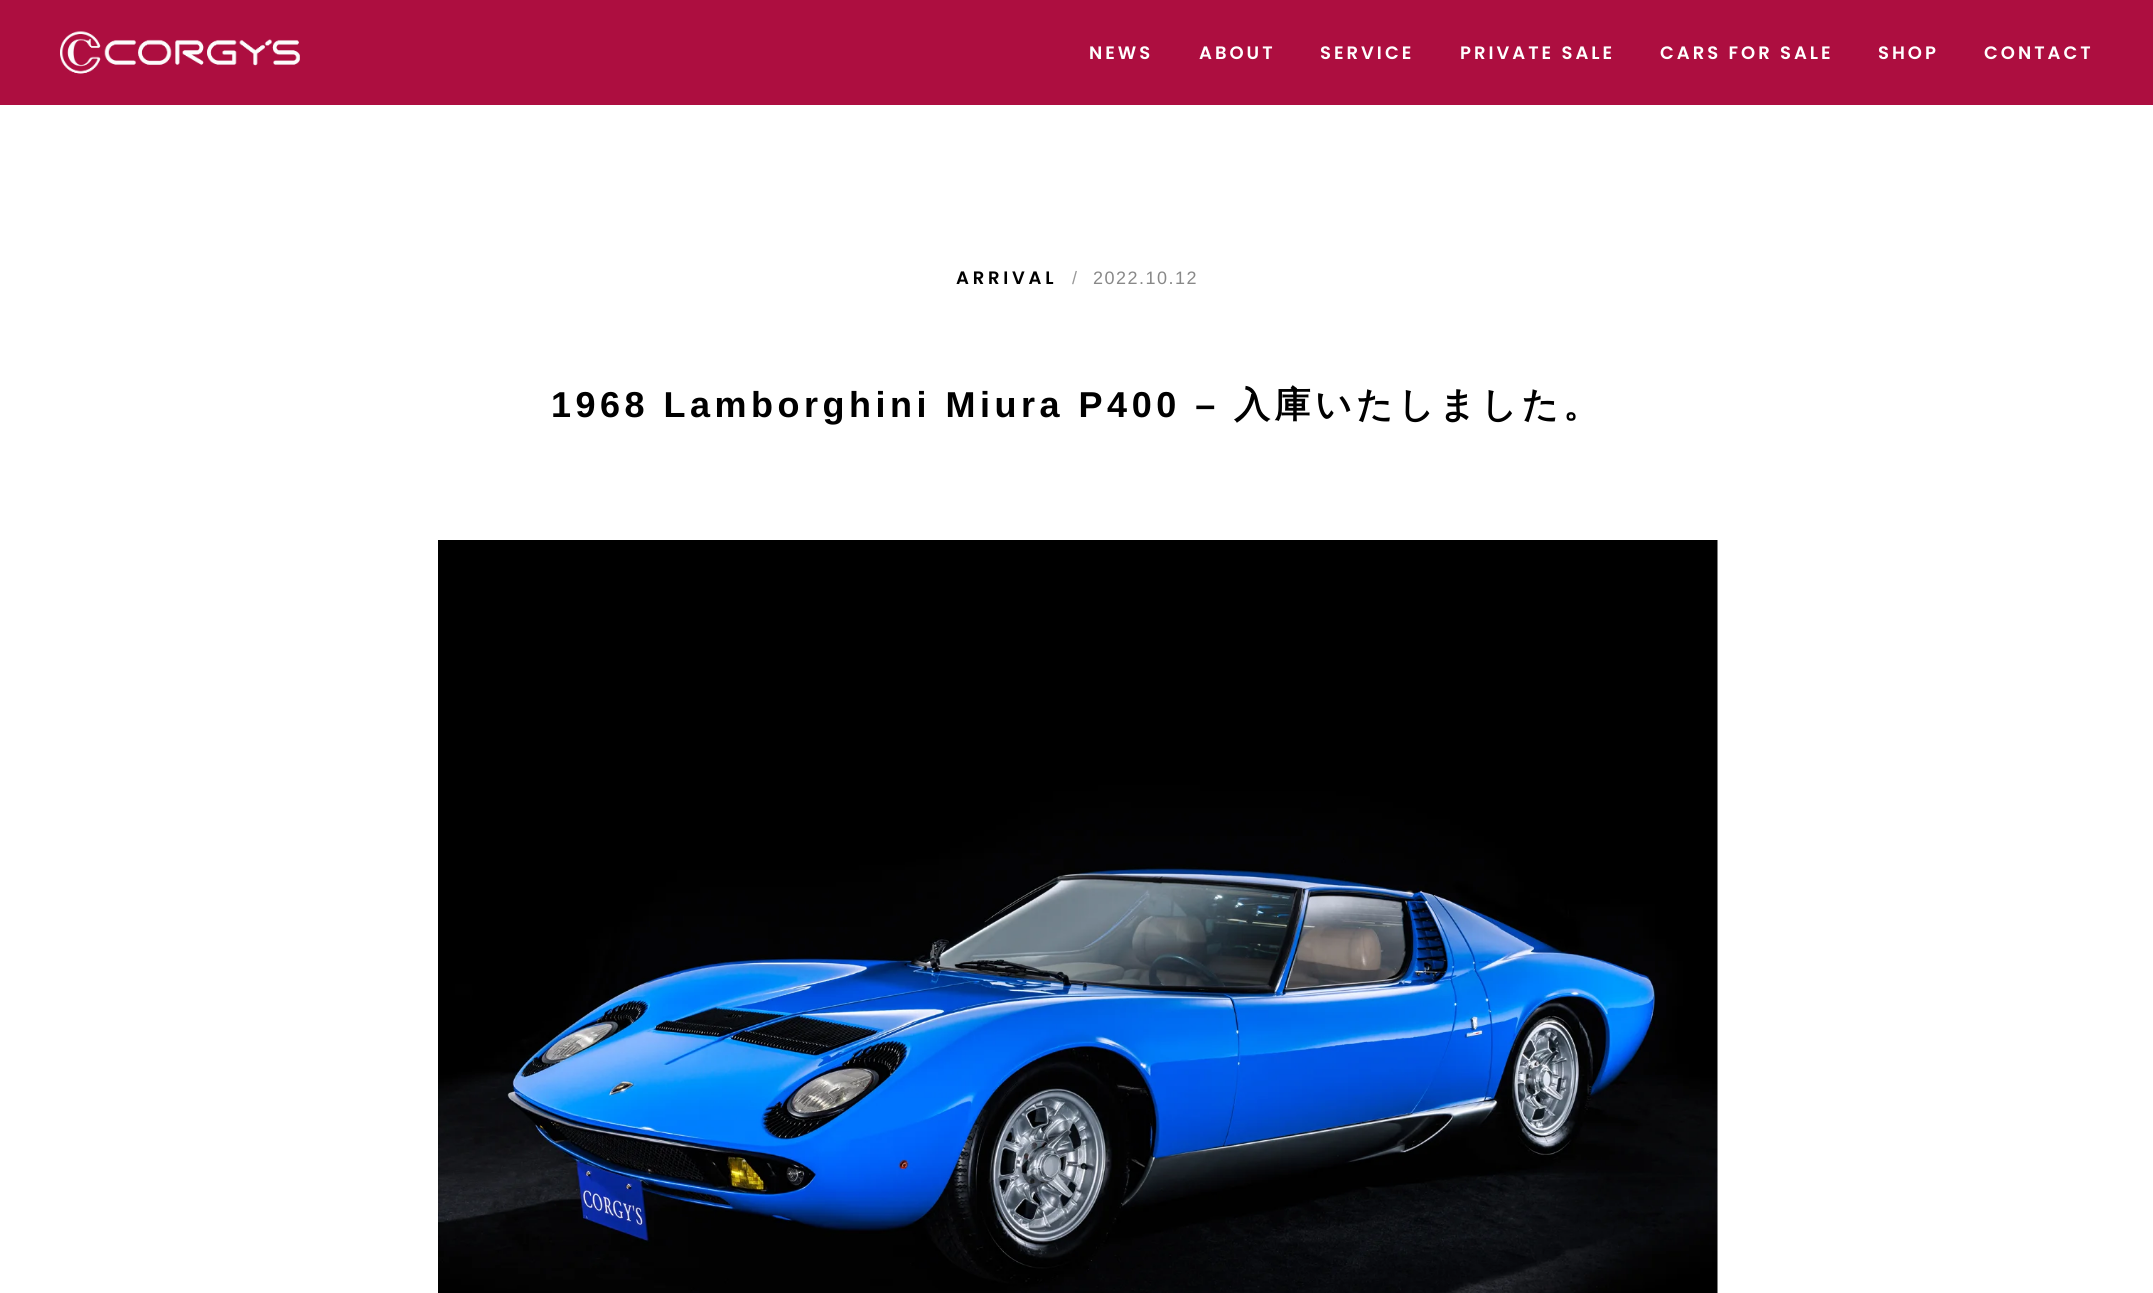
#include <cairo.h>
#include <math.h>
#include <stddef.h>


static void rgb(cairo_t *cr, int r, int g, int b)
{
	cairo_set_source_rgb(cr, r / 255.0, g / 255.0, b / 255.0);
}

static void face(cairo_t *cr, const char *family, double size, int italic, int bold)
{
	cairo_select_font_face(cr, family, italic ? CAIRO_FONT_SLANT_ITALIC : CAIRO_FONT_SLANT_NORMAL,
		bold ? CAIRO_FONT_WEIGHT_BOLD : CAIRO_FONT_WEIGHT_NORMAL);
	cairo_set_font_size(cr, size);
}

static void tracked(cairo_t *cr, double x, double y, const char *s, double letter, double word)
{
	cairo_move_to(cr, x, y);
	while (*s) {
		char ch[5] = {0};
		int n = 0;
		do ch[n++] = *s++; while ((*s & 0xC0) == 0x80);
		cairo_show_text(cr, ch);
		cairo_rel_move_to(cr, letter + word * (*ch == ' '), 0);
	}
}

static void rect(cairo_t *cr, double x, double y, double w, double h)
{
	cairo_rectangle(cr, x, y, w, h);
	cairo_fill(cr);
}

static void image(cairo_t *cr, const char *path, double x, double y, double w, double h)
{
	cairo_surface_t *image = cairo_image_surface_create_from_png(path);
	cairo_save(cr);
	cairo_set_source_surface(cr, image, x, y);
	cairo_rectangle(cr, x, y, w, h);
	cairo_fill(cr);
	cairo_restore(cr);
	cairo_surface_destroy(image);
}

static void draw(cairo_t *cr) {
	rgb(cr, 255, 255, 255);
	cairo_paint(cr);
	rgb(cr, 173, 14, 64);
	rect(cr, 0, 0, 2153, 105);
	image(cr, "image0.png", 60, 31, 240, 43);
	face(cr, "Poppins SemiBold", 18, 0, 0);
	rgb(cr, 255, 255, 255);
	tracked(cr, 1089, 59, "NEWS", 3, 0);
	tracked(cr, 1199, 59, "ABOUT", 3, 0);
	tracked(cr, 1320, 59, "SERVICE", 3, 0);
	tracked(cr, 1460, 59, "PRIVATE SALE", 3, 0);
	tracked(cr, 1660, 59, "CARS FOR SALE", 3, 0);
	tracked(cr, 1878, 59, "SHOP", 3, 0);
	tracked(cr, 1984, 59, "CONTACT", 3, 0);
	rgb(cr, 0, 0, 0);
	tracked(cr, 956, 284, "ARRIVAL", 3.75, 0);
	face(cr, "Liberation Sans", 18, 0, 0);
	rgb(cr, 153, 153, 153);
	tracked(cr, 1072, 284, "/", 1.5, 0);
	rgb(cr, 136, 136, 136);
	tracked(cr, 1093, 284, "2022.10.12", 1.5, 0);
	face(cr, "Liberation Sans", 36, 0, 1);
	rgb(cr, 0, 0, 0);
	tracked(cr, 551, 417, "1968 Lamborghini Miura P400 –", 4.5, 0);
	face(cr, "WenQuanYi Zen Hei", 36, 0, 1);
	tracked(cr, 1234, 417, "入庫いたしました。", 4.5, 0);
	image(cr, "image1.png", 438, 540, 1280, 753);
}

int main(void) {
	cairo_surface_t *surface = cairo_image_surface_create(CAIRO_FORMAT_RGB24, 2153, 1293);
	cairo_t *cr = cairo_create(surface);
	cairo_font_options_t *options = cairo_font_options_create();
	cairo_font_options_set_hint_metrics(options, CAIRO_HINT_METRICS_OFF);
	cairo_font_options_set_hint_style(options, CAIRO_HINT_STYLE_NONE);
	cairo_set_font_options(cr, options);
	cairo_set_miter_limit(cr, 4);
	draw(cr);
	cairo_surface_write_to_png(surface, "render.png");
	cairo_font_options_destroy(options);
	cairo_destroy(cr);
	cairo_surface_destroy(surface);
	return 0;
}
